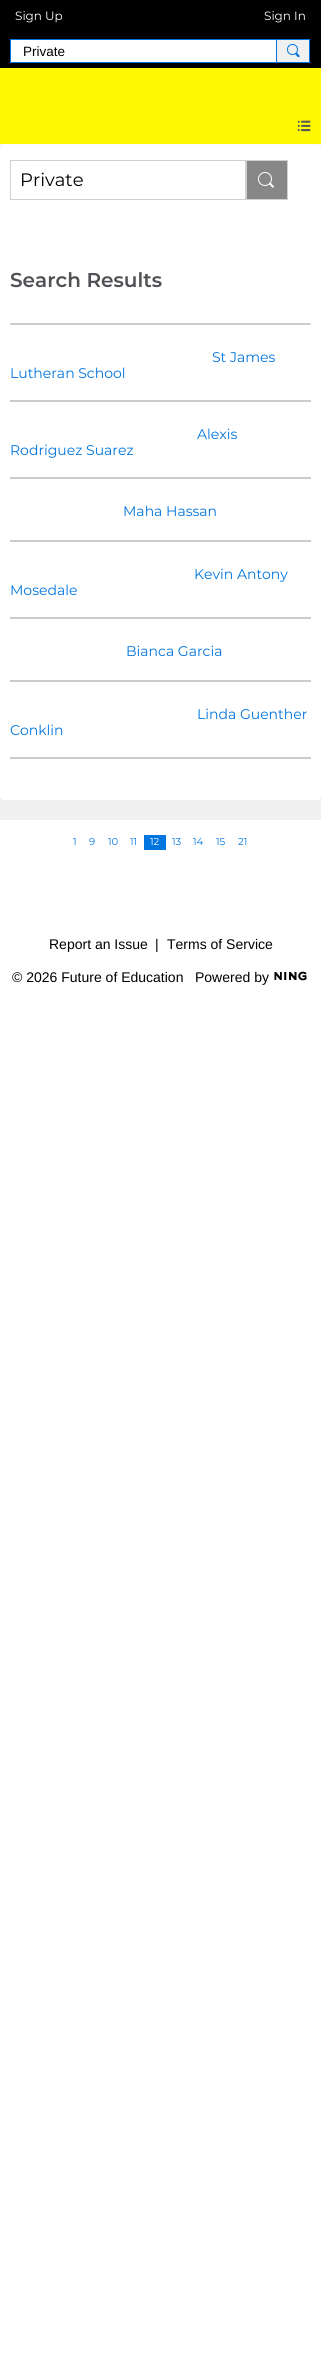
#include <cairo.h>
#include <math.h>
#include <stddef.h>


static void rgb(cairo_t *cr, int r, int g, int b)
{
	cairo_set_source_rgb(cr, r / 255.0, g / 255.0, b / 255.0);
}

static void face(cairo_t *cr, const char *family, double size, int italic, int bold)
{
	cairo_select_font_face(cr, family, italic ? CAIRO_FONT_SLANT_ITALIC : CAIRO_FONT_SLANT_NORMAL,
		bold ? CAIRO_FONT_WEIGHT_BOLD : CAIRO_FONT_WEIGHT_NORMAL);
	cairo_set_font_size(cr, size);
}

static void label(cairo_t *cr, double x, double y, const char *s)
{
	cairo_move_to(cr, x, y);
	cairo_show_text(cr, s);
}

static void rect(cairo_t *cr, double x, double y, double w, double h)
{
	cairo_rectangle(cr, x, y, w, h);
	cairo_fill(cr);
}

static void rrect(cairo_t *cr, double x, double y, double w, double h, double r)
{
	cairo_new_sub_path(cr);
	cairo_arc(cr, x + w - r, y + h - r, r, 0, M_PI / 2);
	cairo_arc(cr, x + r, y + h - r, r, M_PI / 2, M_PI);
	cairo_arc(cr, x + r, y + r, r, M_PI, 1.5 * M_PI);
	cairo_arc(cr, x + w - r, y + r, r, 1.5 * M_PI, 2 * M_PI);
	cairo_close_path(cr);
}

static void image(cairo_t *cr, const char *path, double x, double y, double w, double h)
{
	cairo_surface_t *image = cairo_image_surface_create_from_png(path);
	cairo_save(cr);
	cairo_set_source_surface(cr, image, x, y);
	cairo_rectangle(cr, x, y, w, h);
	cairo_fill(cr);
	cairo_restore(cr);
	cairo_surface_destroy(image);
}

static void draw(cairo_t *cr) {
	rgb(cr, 255, 255, 255);
	cairo_paint(cr);
	rgb(cr, 0, 0, 0);
	rect(cr, 0, 0, 321, 68);
	face(cr, "Montserrat Thin", 12, 0, 0);
	rgb(cr, 255, 255, 255);
	label(cr, 15, 20, "Sign Up");
	label(cr, 264, 20, "Sign In");
	cairo_rectangle(cr, 10.5, 39.5, 266, 23);
	cairo_fill_preserve(cr);
	rgb(cr, 0, 117, 223);
	cairo_set_line_width(cr, 1);
	cairo_stroke(cr);
	face(cr, "Liberation Sans", 13.5, 0, 0);
	rgb(cr, 0, 0, 0);
	label(cr, 23, 56, "Private");
	cairo_set_source_rgba(cr, 1, 1, 1, 0.94);
	cairo_rectangle(cr, 276.5, 39.5, 33, 23);
	cairo_fill_preserve(cr);
	rgb(cr, 0, 117, 223);
	cairo_stroke(cr);
	cairo_arc(cr, 292.5, 49.5, 5, 0, 2 * M_PI);
	cairo_stroke(cr);
	cairo_new_path(cr);
	cairo_move_to(cr, 297, 53);
	cairo_line_to(cr, 299.5, 55.5);
	cairo_curve_to(cr, 299.5, 56, 299.5, 56.5, 299.5, 57);
	cairo_curve_to(cr, 298, 58, 296.5, 55.5, 295.5, 54.5);
	cairo_curve_to(cr, 295, 53.5, 296, 52.5, 297, 53);
	cairo_close_path(cr);
	cairo_fill(cr);
	rgb(cr, 255, 249, 4);
	rect(cr, 0, 68, 321, 76);
	image(cr, "image0.png", 297, 120, 14, 12);
	rgb(cr, 240, 240, 240);
	rect(cr, 0, 145, 321, 675);
	rgb(cr, 251, 251, 251);
	rect(cr, 0, 144, 321, 1);
	rgb(cr, 255, 255, 255);
	rrect(cr, 0, 145, 321, 655, 4);
	cairo_fill(cr);
	cairo_rectangle(cr, 10.5, 160.5, 235, 39);
	rgb(cr, 208, 208, 208);
	cairo_stroke(cr);
	face(cr, "Montserrat Thin", 18, 0, 0);
	rgb(cr, 0, 0, 0);
	label(cr, 20, 186, "Private");
	rgb(cr, 135, 135, 135);
	cairo_rectangle(cr, 246.5, 160.5, 41, 39);
	cairo_fill_preserve(cr);
	rgb(cr, 208, 208, 208);
	cairo_stroke(cr);
	cairo_arc(cr, 265, 179, 6.5, 0, 2 * M_PI);
	rgb(cr, 255, 255, 255);
	cairo_stroke(cr);
	cairo_new_path(cr);
	cairo_move_to(cr, 271, 183);
	cairo_line_to(cr, 272.5, 185);
	cairo_curve_to(cr, 273, 185.5, 274.5, 186, 274, 187);
	cairo_curve_to(cr, 273, 189, 270.5, 185.5, 270, 185);
	cairo_curve_to(cr, 268.5, 183.5, 270, 182.5, 271, 183);
	cairo_close_path(cr);
	cairo_fill(cr);
	face(cr, "Montserrat SemiBold", 20, 0, 0);
	rgb(cr, 80, 80, 85);
	label(cr, 10, 287, "Search Results");
	rgb(cr, 204, 204, 204);
	rrect(cr, 10, 323, 301, 2, 1);
	cairo_fill(cr);
	rect(cr, 10, 400, 301, 2);
	face(cr, "Montserrat Thin", 14, 0, 0);
	rgb(cr, 0, 117, 223);
	label(cr, 212, 362, "St James");
	label(cr, 10, 378, "Lutheran School");
	rgb(cr, 204, 204, 204);
	rect(cr, 10, 477, 301, 2);
	rgb(cr, 0, 117, 223);
	label(cr, 197, 439, "Alexis");
	label(cr, 10, 455, "Rodriguez Suarez");
	rgb(cr, 204, 204, 204);
	rect(cr, 10, 540, 301, 2);
	rgb(cr, 0, 117, 223);
	label(cr, 123, 516, "Maha Hassan");
	rgb(cr, 204, 204, 204);
	rect(cr, 10, 617, 301, 2);
	rgb(cr, 0, 117, 223);
	label(cr, 194, 579, "Kevin Antony");
	label(cr, 10, 595, "Mosedale");
	rgb(cr, 204, 204, 204);
	rect(cr, 10, 680, 301, 2);
	rgb(cr, 0, 117, 223);
	label(cr, 126, 656, "Bianca Garcia");
	rgb(cr, 204, 204, 204);
	rect(cr, 10, 757, 301, 2);
	rgb(cr, 0, 117, 223);
	label(cr, 197, 719, "Linda Guenther");
	label(cr, 10, 735, "Conklin");
	face(cr, "Montserrat Thin", 10, 0, 0);
	label(cr, 73, 845, "1");
	label(cr, 89, 845, "9");
	label(cr, 108, 845, "10");
	label(cr, 130, 845, "11");
	rect(cr, 144, 835, 22, 15);
	rgb(cr, 255, 255, 255);
	label(cr, 150, 845, "12");
	rgb(cr, 0, 117, 223);
	label(cr, 172, 845, "13");
	label(cr, 193, 845, "14");
	label(cr, 216, 845, "15");
	label(cr, 238, 845, "21");
	face(cr, "Liberation Sans", 14, 0, 0);
	rgb(cr, 0, 0, 0);
	label(cr, 49, 949, "Report an Issue");
	label(cr, 155, 949, "|");
	label(cr, 167, 949, "Terms of Service");
	label(cr, 12, 982, "© 2026 Future of Education");
	label(cr, 195, 982, "Powered by");
	image(cr, "image1.png", 274, 971, 33, 10);
}

int main(void) {
	cairo_surface_t *surface = cairo_image_surface_create(CAIRO_FORMAT_RGB24, 321, 2361);
	cairo_t *cr = cairo_create(surface);
	cairo_font_options_t *options = cairo_font_options_create();
	cairo_font_options_set_hint_metrics(options, CAIRO_HINT_METRICS_OFF);
	cairo_font_options_set_hint_style(options, CAIRO_HINT_STYLE_NONE);
	cairo_set_font_options(cr, options);
	cairo_set_miter_limit(cr, 4);
	draw(cr);
	cairo_surface_write_to_png(surface, "render.png");
	cairo_font_options_destroy(options);
	cairo_destroy(cr);
	cairo_surface_destroy(surface);
	return 0;
}
